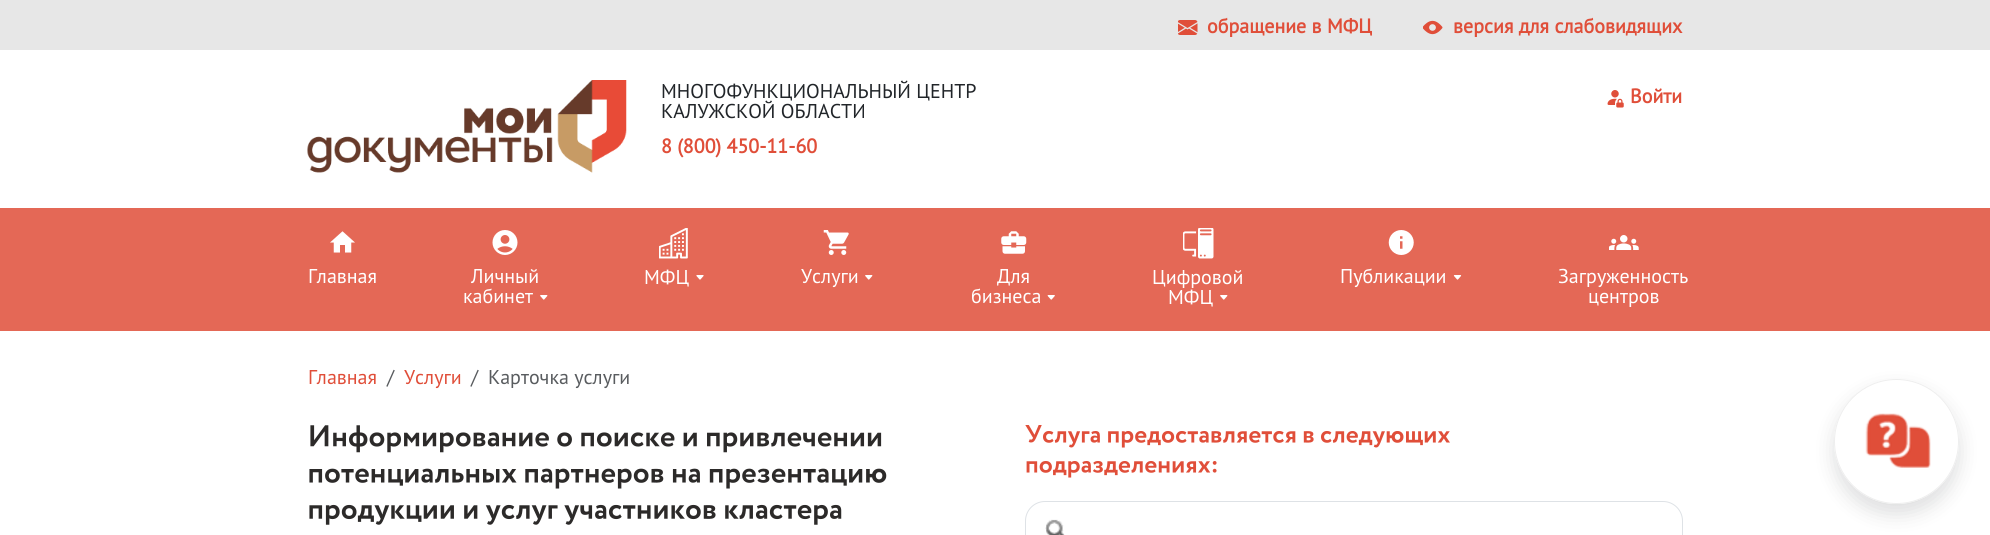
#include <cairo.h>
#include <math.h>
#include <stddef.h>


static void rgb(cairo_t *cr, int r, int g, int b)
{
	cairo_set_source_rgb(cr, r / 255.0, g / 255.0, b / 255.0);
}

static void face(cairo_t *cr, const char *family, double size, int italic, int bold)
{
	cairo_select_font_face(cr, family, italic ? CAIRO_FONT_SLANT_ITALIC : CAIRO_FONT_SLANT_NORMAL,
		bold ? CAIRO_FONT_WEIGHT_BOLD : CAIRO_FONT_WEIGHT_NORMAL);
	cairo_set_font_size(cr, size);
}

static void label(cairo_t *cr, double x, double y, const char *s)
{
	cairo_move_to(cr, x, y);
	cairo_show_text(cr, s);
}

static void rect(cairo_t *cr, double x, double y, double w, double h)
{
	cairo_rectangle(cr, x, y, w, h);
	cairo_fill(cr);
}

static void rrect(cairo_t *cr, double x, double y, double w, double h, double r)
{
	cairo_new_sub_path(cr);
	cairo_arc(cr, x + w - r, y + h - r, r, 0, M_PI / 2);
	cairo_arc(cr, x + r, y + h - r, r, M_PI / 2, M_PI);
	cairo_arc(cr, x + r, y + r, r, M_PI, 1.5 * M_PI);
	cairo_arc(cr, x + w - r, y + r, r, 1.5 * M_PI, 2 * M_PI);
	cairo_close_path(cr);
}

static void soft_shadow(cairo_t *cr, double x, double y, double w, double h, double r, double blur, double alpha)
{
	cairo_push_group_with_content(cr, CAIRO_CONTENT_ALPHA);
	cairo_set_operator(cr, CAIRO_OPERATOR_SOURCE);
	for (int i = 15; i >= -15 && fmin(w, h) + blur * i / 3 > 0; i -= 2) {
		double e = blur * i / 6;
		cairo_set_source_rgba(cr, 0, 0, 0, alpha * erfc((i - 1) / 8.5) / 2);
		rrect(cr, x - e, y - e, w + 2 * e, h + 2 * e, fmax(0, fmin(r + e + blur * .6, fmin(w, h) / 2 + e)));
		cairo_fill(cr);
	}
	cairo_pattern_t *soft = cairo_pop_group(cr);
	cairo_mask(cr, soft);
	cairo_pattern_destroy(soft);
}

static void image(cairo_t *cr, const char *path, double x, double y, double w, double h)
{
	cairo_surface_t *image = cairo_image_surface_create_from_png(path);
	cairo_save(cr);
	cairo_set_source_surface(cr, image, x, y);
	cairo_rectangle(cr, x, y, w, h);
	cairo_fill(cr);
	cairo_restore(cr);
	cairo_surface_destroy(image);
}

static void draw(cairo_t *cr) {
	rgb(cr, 231, 231, 231);
	cairo_paint(cr);
	image(cr, "image0.png", 1178, 20, 20, 15);
	face(cr, "PT Sans", 20, 0, 1);
	rgb(cr, 224, 78, 57);
	label(cr, 1207, 33, "обращение в МФЦ");
	image(cr, "image1.png", 1423, 20, 20, 15);
	label(cr, 1453, 33, "версия для слабовидящих");
	rgb(cr, 255, 255, 255);
	rect(cr, 0, 50, 1990, 158);
	image(cr, "image2.png", 307, 80, 320, 93);
	face(cr, "PT Sans", 20, 0, 0);
	rgb(cr, 33, 37, 41);
	label(cr, 661, 98, "МНОГОФУНКЦИОНАЛЬНЫЙ ЦЕНТР");
	label(cr, 661, 118, "КАЛУЖСКОЙ ОБЛАСТИ");
	face(cr, "PT Sans", 20, 0, 1);
	rgb(cr, 224, 78, 57);
	label(cr, 661, 153, "8 (800) 450-11-60");
	image(cr, "image3.png", 1607, 90, 17, 18);
	label(cr, 1630, 103, "Войти");
	rgb(cr, 228, 104, 86);
	rect(cr, 0, 208, 1990, 123);
	image(cr, "image4.png", 330, 231, 25, 22);
	face(cr, "PT Sans", 20, 0, 0);
	rgb(cr, 255, 255, 255);
	label(cr, 308, 283, "Главная");
	image(cr, "image5.png", 492, 230, 26, 25);
	label(cr, 471, 283, "Личный");
	label(cr, 463, 303, "кабинет");
	image(cr, "image6.png", 540, 295, 8, 5);
	image(cr, "image7.png", 659, 228, 29, 31);
	label(cr, 644, 284, "МФЦ");
	image(cr, "image8.png", 696, 275, 8, 5);
	image(cr, "image9.png", 823, 230, 26, 25);
	label(cr, 801, 283, "Услуги");
	image(cr, "image6.png", 865, 275, 8, 5);
	image(cr, "image10.png", 1001, 231, 26, 23);
	label(cr, 997, 283, "Для");
	label(cr, 971, 303, "бизнеса");
	image(cr, "image11.png", 1047, 295, 8, 5);
	image(cr, "image12.png", 1183, 228, 31, 31);
	label(cr, 1152, 284, "Цифровой");
	label(cr, 1168, 304, "МФЦ");
	image(cr, "image6.png", 1220, 295, 8, 5);
	image(cr, "image13.png", 1388, 230, 26, 25);
	label(cr, 1340, 283, "Публикации");
	image(cr, "image14.png", 1453, 275, 9, 5);
	image(cr, "image15.png", 1609, 235, 30, 15);
	label(cr, 1558, 283, "Загруженность");
	label(cr, 1588, 303, "центров");
	rect(cr, 0, 331, 1990, 204);
	rgb(cr, 224, 78, 57);
	label(cr, 308, 384, "Главная");
	rgb(cr, 89, 92, 95);
	label(cr, 387, 384, "/");
	rgb(cr, 224, 78, 57);
	label(cr, 404, 384, "Услуги");
	rgb(cr, 89, 92, 95);
	label(cr, 471, 384, "/");
	label(cr, 488, 384, "Карточка услуги");
	rgb(cr, 33, 37, 41);
	soft_shadow(cr, 1834, 389, 125, 125, 62.5, 10, 0.15);
	rgb(cr, 255, 255, 255);
	cairo_arc(cr, 1896.5, 441.5, 62.5, 0, 2 * M_PI);
	cairo_fill(cr);
	image(cr, "image16.png", 1865, 413, 66, 55);
	cairo_arc(cr, 1896.5, 441.5, 62, 0, 2 * M_PI);
	rgb(cr, 238, 238, 238);
	cairo_set_line_width(cr, 1);
	cairo_stroke(cr);
	image(cr, "image17.png", 310, 425, 572, 28);
	image(cr, "image18.png", 309, 468, 578, 21);
	image(cr, "image19.png", 309, 504, 533, 21);
	image(cr, "image20.png", 1025, 425, 425, 23);
	image(cr, "image21.png", 1026, 461, 191, 17);
	image(cr, "image22.png", 1045, 519, 20, 16);
	rrect(cr, 1025.5, 501.5, 657, 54, 19.5);
	rgb(cr, 222, 226, 230);
	cairo_stroke(cr);
}

int main(void) {
	cairo_surface_t *surface = cairo_image_surface_create(CAIRO_FORMAT_RGB24, 1990, 535);
	cairo_t *cr = cairo_create(surface);
	cairo_font_options_t *options = cairo_font_options_create();
	cairo_font_options_set_hint_metrics(options, CAIRO_HINT_METRICS_OFF);
	cairo_font_options_set_hint_style(options, CAIRO_HINT_STYLE_NONE);
	cairo_set_font_options(cr, options);
	cairo_set_miter_limit(cr, 4);
	draw(cr);
	cairo_surface_write_to_png(surface, "render.png");
	cairo_font_options_destroy(options);
	cairo_destroy(cr);
	cairo_surface_destroy(surface);
	return 0;
}
